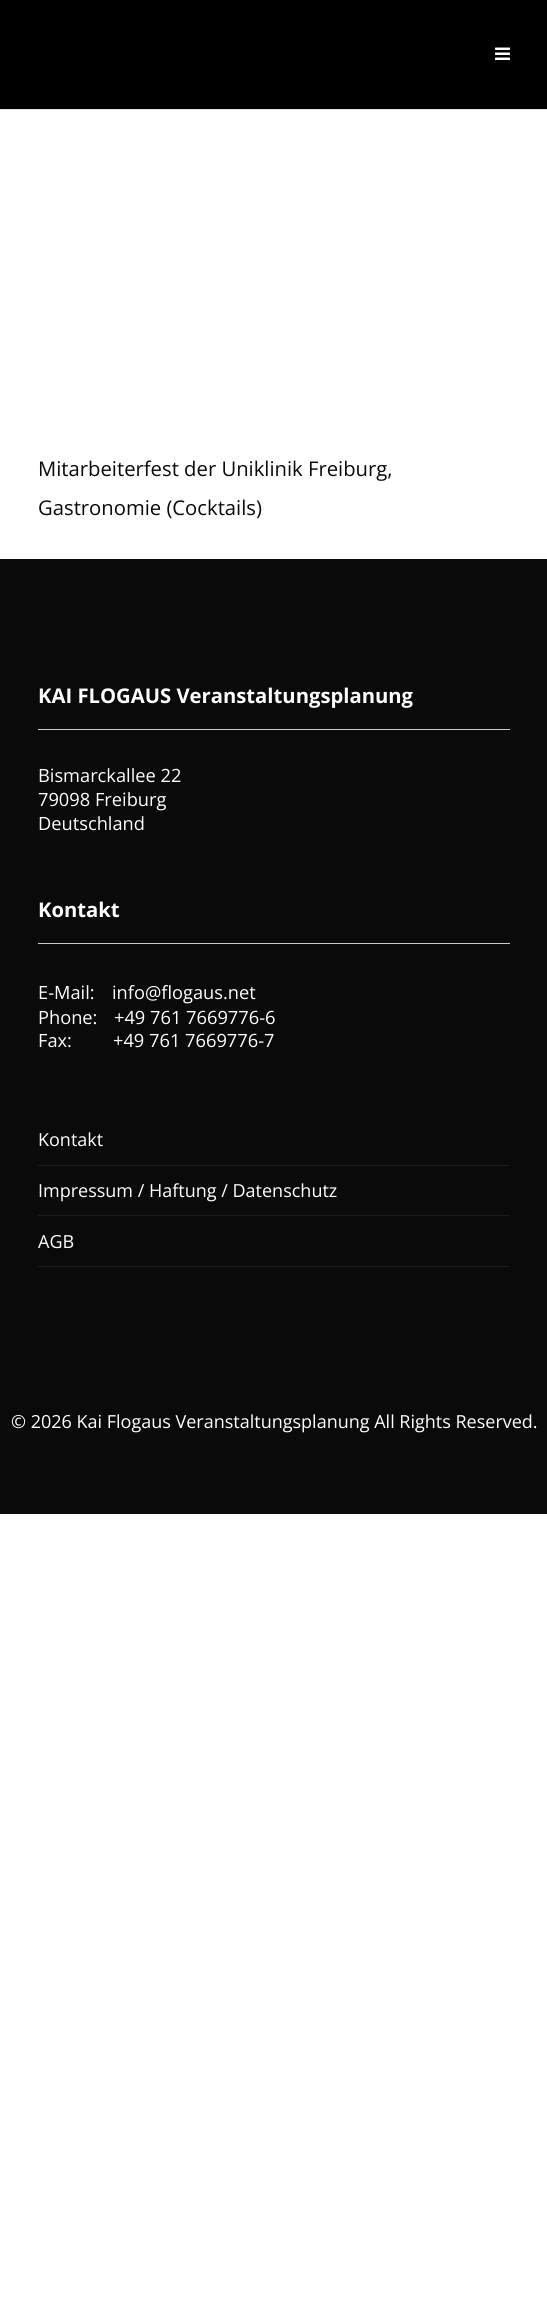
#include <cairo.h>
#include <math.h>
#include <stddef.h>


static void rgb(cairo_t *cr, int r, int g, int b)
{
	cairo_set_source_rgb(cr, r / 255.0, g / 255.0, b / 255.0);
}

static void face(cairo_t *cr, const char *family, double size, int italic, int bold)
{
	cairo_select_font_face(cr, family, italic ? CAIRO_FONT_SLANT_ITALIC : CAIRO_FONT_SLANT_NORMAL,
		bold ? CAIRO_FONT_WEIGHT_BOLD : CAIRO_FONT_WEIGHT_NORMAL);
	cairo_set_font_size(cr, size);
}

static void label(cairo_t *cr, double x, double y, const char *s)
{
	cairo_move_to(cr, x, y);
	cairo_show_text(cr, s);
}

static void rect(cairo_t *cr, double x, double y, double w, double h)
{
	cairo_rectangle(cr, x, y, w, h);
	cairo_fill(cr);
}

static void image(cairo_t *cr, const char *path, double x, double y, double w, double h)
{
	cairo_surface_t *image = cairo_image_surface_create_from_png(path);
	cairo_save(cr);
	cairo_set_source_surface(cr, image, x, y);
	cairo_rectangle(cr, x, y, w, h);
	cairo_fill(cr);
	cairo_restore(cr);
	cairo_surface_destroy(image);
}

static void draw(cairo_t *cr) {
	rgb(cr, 255, 255, 255);
	cairo_paint(cr);
	rgb(cr, 230, 230, 230);
	cairo_new_path(cr);
	cairo_move_to(cr, 0, 109);
	cairo_line_to(cr, 0, 110);
	cairo_line_to(cr, 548, 110);
	cairo_line_to(cr, 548, 0);
	cairo_line_to(cr, 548, 109);
	cairo_close_path(cr);
	cairo_fill(cr);
	rgb(cr, 0, 0, 0);
	rect(cr, 0, 0, 547, 109);
	image(cr, "image0.png", 495, 47, 15, 13);
	face(cr, "Open Sans", 20.25, 0, 0);
	rgb(cr, 10, 10, 10);
	label(cr, 38, 476, "Mitarbeiterfest der Uniklinik Freiburg,");
	label(cr, 38, 515, "Gastronomie (Cocktails)");
	rect(cr, 0, 559, 547, 955);
	face(cr, "Open Sans", 20.25, 0, 1);
	rgb(cr, 255, 255, 255);
	label(cr, 38, 703, "KAI FLOGAUS Veranstaltungsplanung");
	rgb(cr, 204, 204, 204);
	rect(cr, 38, 729, 472, 1);
	face(cr, "Open Sans", 18.25, 0, 0);
	rgb(cr, 255, 255, 255);
	label(cr, 38, 782, "Bismarckallee 22");
	label(cr, 38, 806, "79098 Freiburg");
	label(cr, 38, 830, "Deutschland");
	face(cr, "Open Sans", 20.25, 0, 1);
	label(cr, 38, 917, "Kontakt");
	rgb(cr, 204, 204, 204);
	rect(cr, 38, 943, 472, 1);
	face(cr, "Open Sans", 18.25, 0, 0);
	rgb(cr, 255, 255, 255);
	label(cr, 38, 999, "E-Mail:");
	label(cr, 112, 999, "info@flogaus.net");
	label(cr, 38, 1024, "Phone:");
	label(cr, 114, 1024, "+49 761 7669776-6");
	label(cr, 38, 1047, "Fax:");
	label(cr, 113, 1047, "+49 761 7669776-7");
	rgb(cr, 27, 27, 27);
	rect(cr, 38, 1165, 472, 1);
	face(cr, "Open Sans", 18, 0, 0);
	rgb(cr, 255, 255, 255);
	label(cr, 38, 1146, "Kontakt");
	rgb(cr, 27, 27, 27);
	rect(cr, 38, 1215, 472, 1);
	rgb(cr, 255, 255, 255);
	label(cr, 38, 1197, "Impressum / Haftung / Datenschutz");
	rgb(cr, 27, 27, 27);
	rect(cr, 38, 1266, 472, 1);
	rgb(cr, 255, 255, 255);
	label(cr, 38, 1248, "AGB");
	label(cr, 11, 1428, "© 2026 Kai Flogaus Veranstaltungsplanung All Rights Reserved.");
}

int main(void) {
	cairo_surface_t *surface = cairo_image_surface_create(CAIRO_FORMAT_RGB24, 547, 2322);
	cairo_t *cr = cairo_create(surface);
	cairo_font_options_t *options = cairo_font_options_create();
	cairo_font_options_set_hint_metrics(options, CAIRO_HINT_METRICS_OFF);
	cairo_font_options_set_hint_style(options, CAIRO_HINT_STYLE_NONE);
	cairo_set_font_options(cr, options);
	cairo_set_miter_limit(cr, 4);
	draw(cr);
	cairo_surface_write_to_png(surface, "render.png");
	cairo_font_options_destroy(options);
	cairo_destroy(cr);
	cairo_surface_destroy(surface);
	return 0;
}
